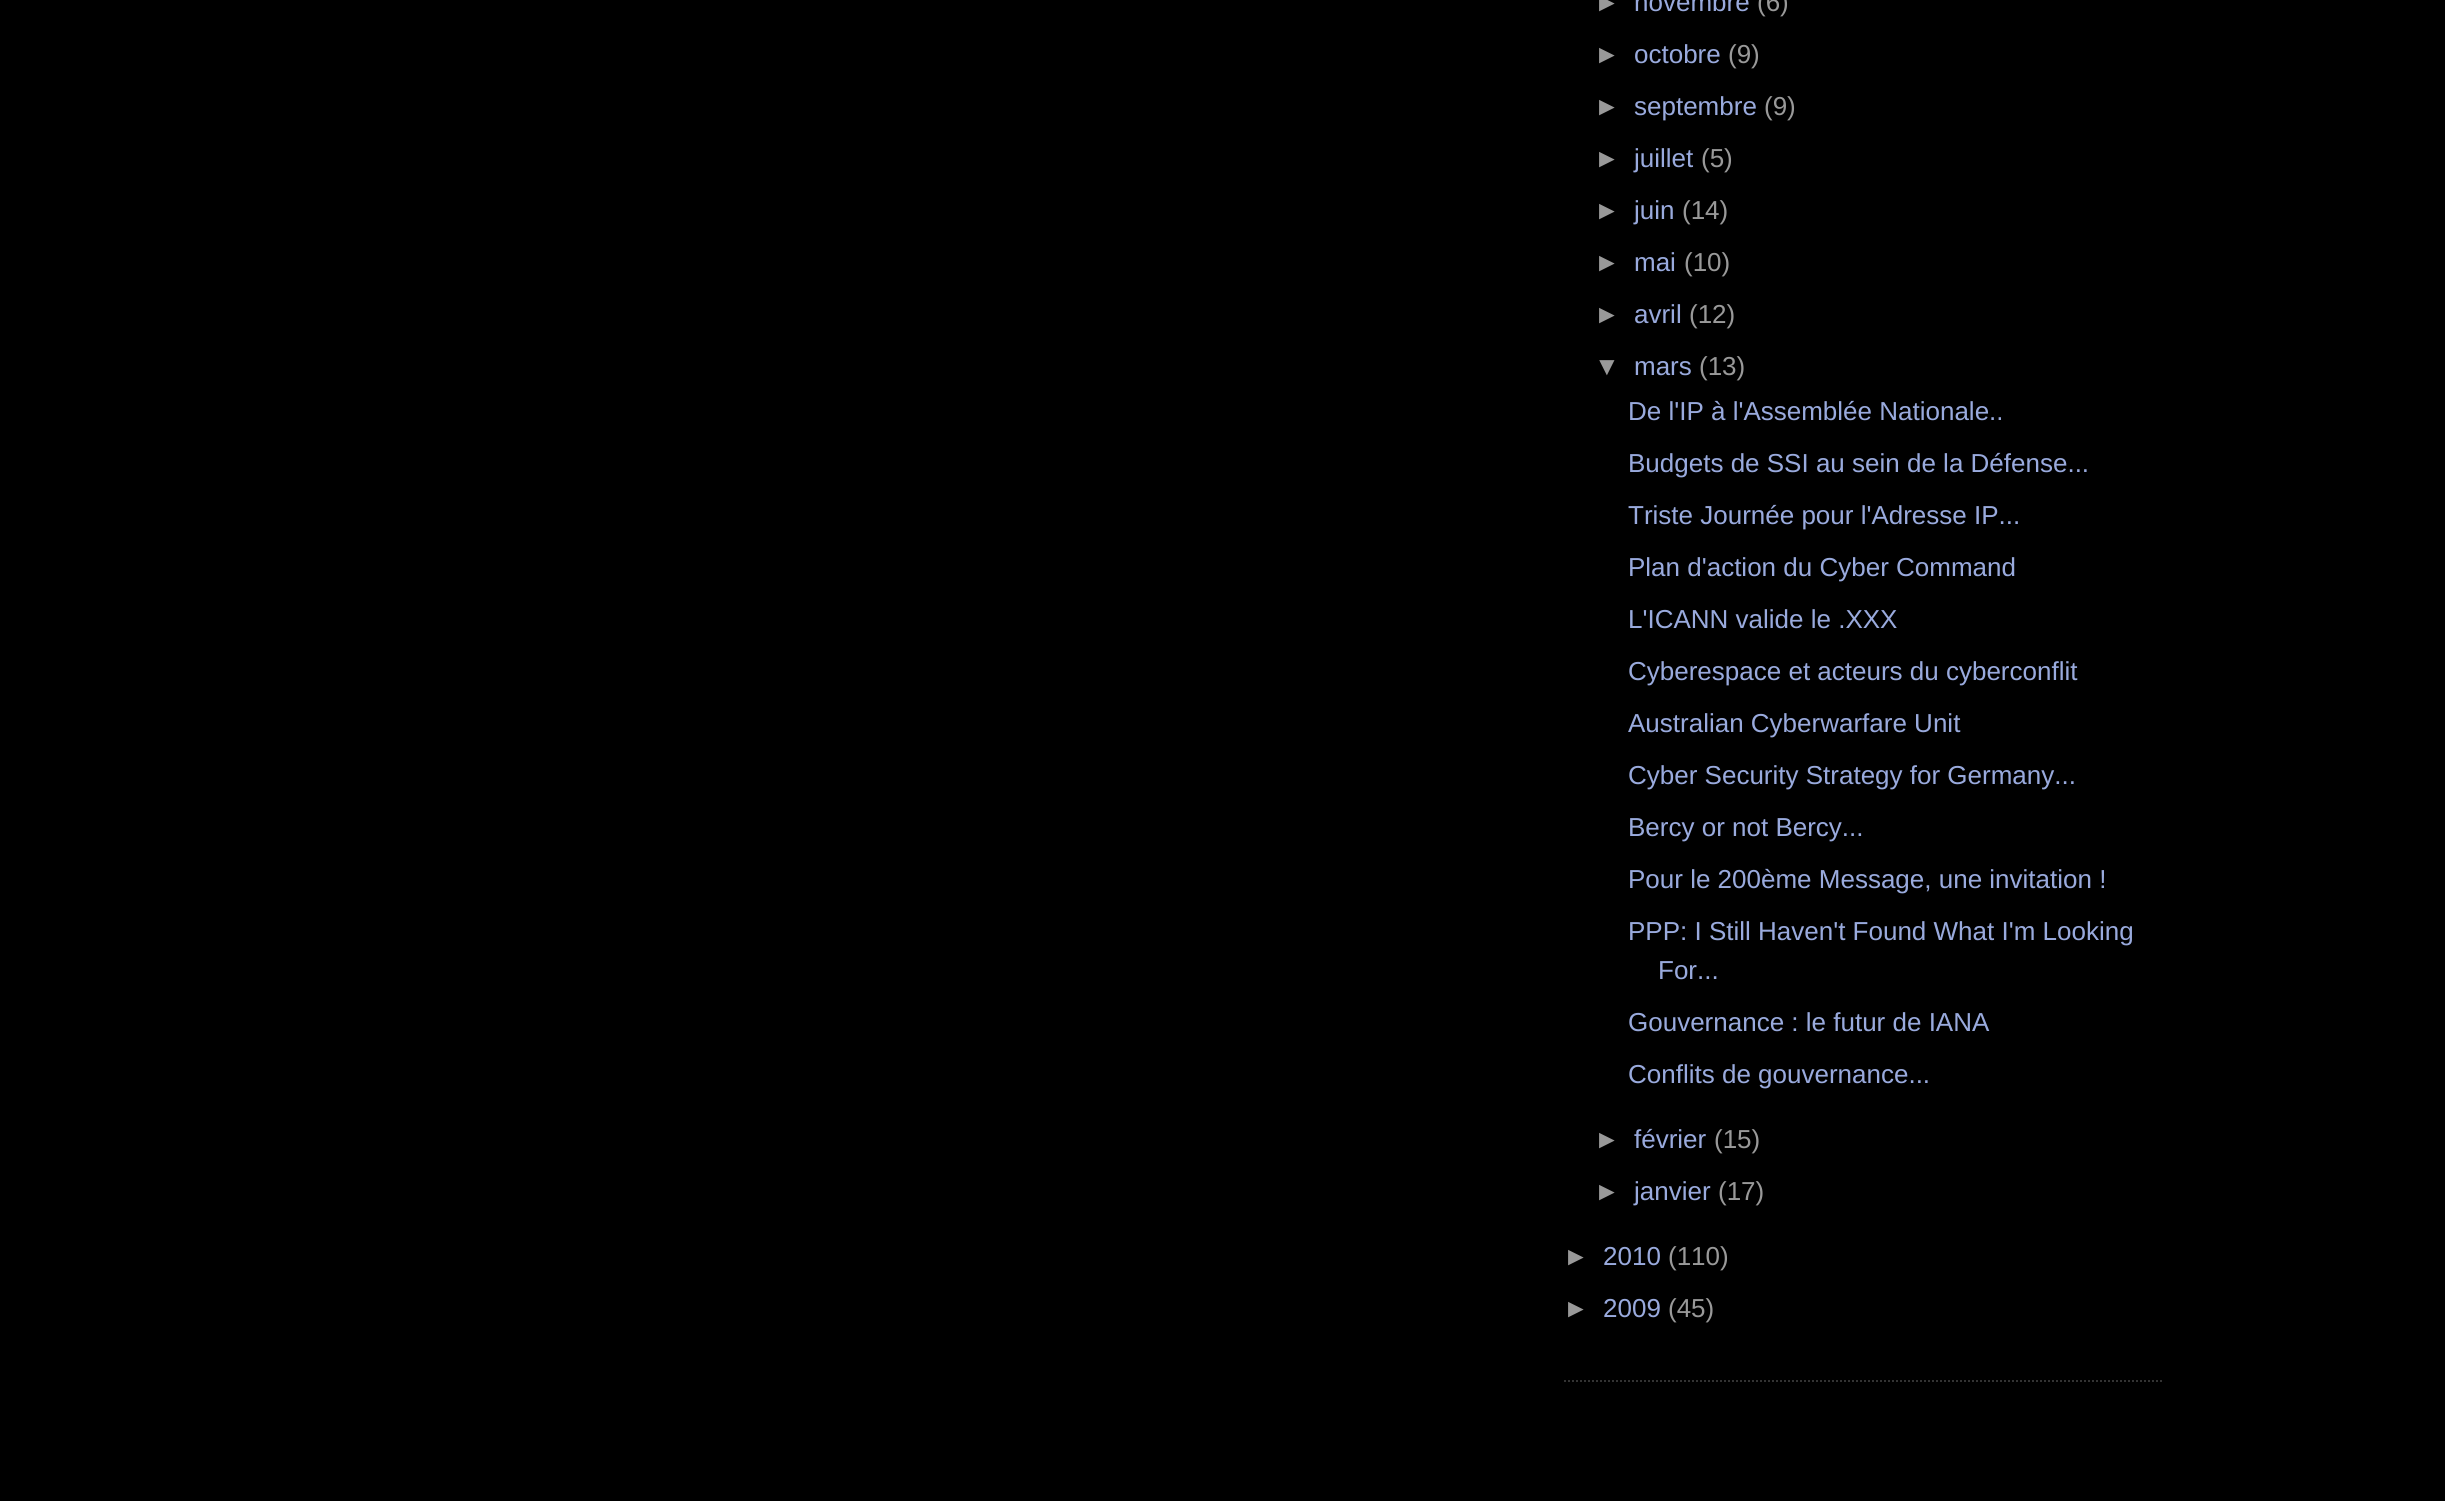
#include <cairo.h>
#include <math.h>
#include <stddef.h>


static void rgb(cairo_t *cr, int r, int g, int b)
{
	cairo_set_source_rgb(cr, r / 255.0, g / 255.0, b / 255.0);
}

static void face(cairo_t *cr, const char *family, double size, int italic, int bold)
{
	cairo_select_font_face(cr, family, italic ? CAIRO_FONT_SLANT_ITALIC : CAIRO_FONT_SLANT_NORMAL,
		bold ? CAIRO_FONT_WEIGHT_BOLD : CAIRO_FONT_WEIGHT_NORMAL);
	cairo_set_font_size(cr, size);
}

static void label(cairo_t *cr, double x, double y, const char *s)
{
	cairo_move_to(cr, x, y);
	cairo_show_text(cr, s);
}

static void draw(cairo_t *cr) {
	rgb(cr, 0, 0, 0);
	cairo_paint(cr);
	cairo_new_path(cr);
	cairo_move_to(cr, 1564, 1381);
	cairo_line_to(cr, 2164, 1381);
	rgb(cr, 51, 51, 51);
	cairo_set_dash(cr, (double[]){2, 2}, 2, 0);
	cairo_stroke(cr);
	face(cr, "Liberation Sans", 26, 0, 0);
	rgb(cr, 153, 153, 153);
	label(cr, 1594, 11, "►");
	rgb(cr, 153, 170, 221);
	label(cr, 1634, 11, "novembre");
	rgb(cr, 153, 153, 153);
	label(cr, 1757, 11, "(6)");
	label(cr, 1594, 63, "►");
	rgb(cr, 153, 170, 221);
	label(cr, 1634, 63, "octobre");
	rgb(cr, 153, 153, 153);
	label(cr, 1728, 63, "(9)");
	label(cr, 1594, 115, "►");
	rgb(cr, 153, 170, 221);
	label(cr, 1634, 115, "septembre");
	rgb(cr, 153, 153, 153);
	label(cr, 1764, 115, "(9)");
	label(cr, 1594, 167, "►");
	rgb(cr, 153, 170, 221);
	label(cr, 1634, 167, "juillet");
	rgb(cr, 153, 153, 153);
	label(cr, 1701, 167, "(5)");
	label(cr, 1594, 219, "►");
	rgb(cr, 153, 170, 221);
	label(cr, 1634, 219, "juin");
	rgb(cr, 153, 153, 153);
	label(cr, 1682, 219, "(14)");
	label(cr, 1594, 271, "►");
	rgb(cr, 153, 170, 221);
	label(cr, 1634, 271, "mai");
	rgb(cr, 153, 153, 153);
	label(cr, 1684, 271, "(10)");
	label(cr, 1594, 323, "►");
	rgb(cr, 153, 170, 221);
	label(cr, 1634, 323, "avril");
	rgb(cr, 153, 153, 153);
	label(cr, 1689, 323, "(12)");
	label(cr, 1594, 375, "▼");
	rgb(cr, 153, 170, 221);
	label(cr, 1634, 375, "mars");
	rgb(cr, 153, 153, 153);
	label(cr, 1699, 375, "(13)");
	rgb(cr, 153, 170, 221);
	label(cr, 1628, 420, "De l'IP à l'Assemblée Nationale..");
	label(cr, 1628, 472, "Budgets de SSI au sein de la Défense...");
	label(cr, 1628, 524, "Triste Journée pour l'Adresse IP...");
	label(cr, 1628, 576, "Plan d'action du Cyber Command");
	label(cr, 1628, 628, "L'ICANN valide le .XXX");
	label(cr, 1628, 680, "Cyberespace et acteurs du cyberconflit");
	label(cr, 1628, 732, "Australian Cyberwarfare Unit");
	label(cr, 1628, 784, "Cyber Security Strategy for Germany...");
	label(cr, 1628, 836, "Bercy or not Bercy...");
	label(cr, 1628, 888, "Pour le 200ème Message, une invitation !");
	label(cr, 1628, 940, "PPP: I Still Haven't Found What I'm Looking");
	label(cr, 1658, 979, "For...");
	label(cr, 1628, 1031, "Gouvernance : le futur de IANA");
	label(cr, 1628, 1083, "Conflits de gouvernance...");
	rgb(cr, 153, 153, 153);
	label(cr, 1594, 1148, "►");
	rgb(cr, 153, 170, 221);
	label(cr, 1634, 1148, "février");
	rgb(cr, 153, 153, 153);
	label(cr, 1714, 1148, "(15)");
	label(cr, 1594, 1200, "►");
	rgb(cr, 153, 170, 221);
	label(cr, 1634, 1200, "janvier");
	rgb(cr, 153, 153, 153);
	label(cr, 1718, 1200, "(17)");
	label(cr, 1563, 1265, "►");
	rgb(cr, 153, 170, 221);
	label(cr, 1603, 1265, "2010");
	rgb(cr, 153, 153, 153);
	label(cr, 1668, 1265, "(110)");
	label(cr, 1563, 1317, "►");
	rgb(cr, 153, 170, 221);
	label(cr, 1603, 1317, "2009");
	rgb(cr, 153, 153, 153);
	label(cr, 1668, 1317, "(45)");
}

int main(void) {
	cairo_surface_t *surface = cairo_image_surface_create(CAIRO_FORMAT_RGB24, 2445, 1501);
	cairo_t *cr = cairo_create(surface);
	cairo_font_options_t *options = cairo_font_options_create();
	cairo_font_options_set_hint_metrics(options, CAIRO_HINT_METRICS_OFF);
	cairo_font_options_set_hint_style(options, CAIRO_HINT_STYLE_NONE);
	cairo_set_font_options(cr, options);
	cairo_set_miter_limit(cr, 4);
	draw(cr);
	cairo_surface_write_to_png(surface, "render.png");
	cairo_font_options_destroy(options);
	cairo_destroy(cr);
	cairo_surface_destroy(surface);
	return 0;
}
